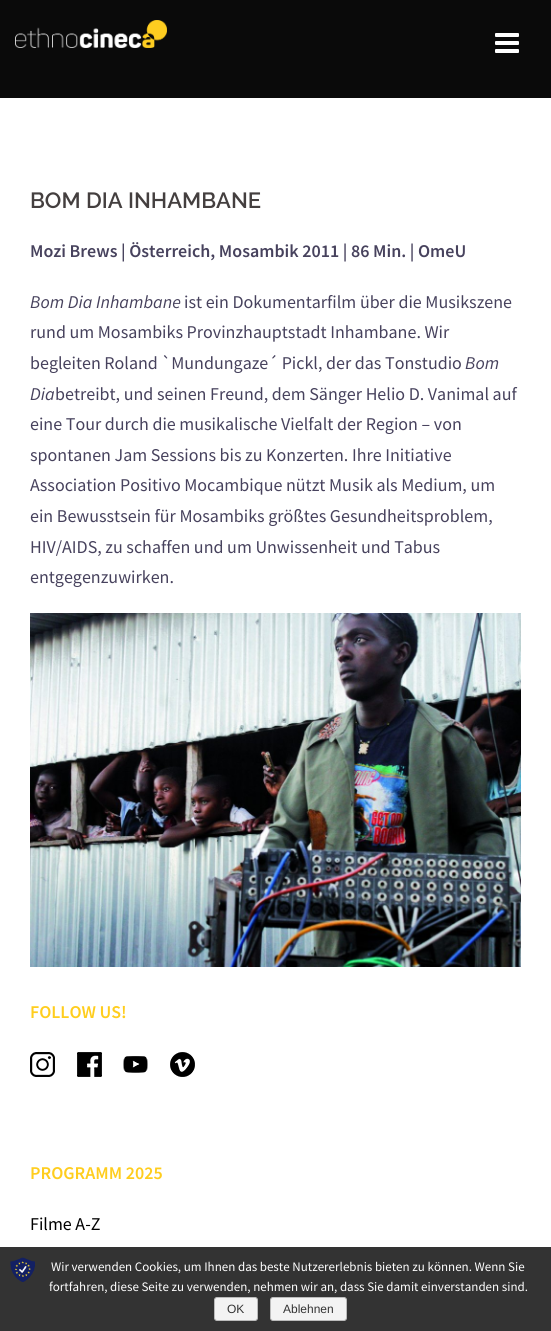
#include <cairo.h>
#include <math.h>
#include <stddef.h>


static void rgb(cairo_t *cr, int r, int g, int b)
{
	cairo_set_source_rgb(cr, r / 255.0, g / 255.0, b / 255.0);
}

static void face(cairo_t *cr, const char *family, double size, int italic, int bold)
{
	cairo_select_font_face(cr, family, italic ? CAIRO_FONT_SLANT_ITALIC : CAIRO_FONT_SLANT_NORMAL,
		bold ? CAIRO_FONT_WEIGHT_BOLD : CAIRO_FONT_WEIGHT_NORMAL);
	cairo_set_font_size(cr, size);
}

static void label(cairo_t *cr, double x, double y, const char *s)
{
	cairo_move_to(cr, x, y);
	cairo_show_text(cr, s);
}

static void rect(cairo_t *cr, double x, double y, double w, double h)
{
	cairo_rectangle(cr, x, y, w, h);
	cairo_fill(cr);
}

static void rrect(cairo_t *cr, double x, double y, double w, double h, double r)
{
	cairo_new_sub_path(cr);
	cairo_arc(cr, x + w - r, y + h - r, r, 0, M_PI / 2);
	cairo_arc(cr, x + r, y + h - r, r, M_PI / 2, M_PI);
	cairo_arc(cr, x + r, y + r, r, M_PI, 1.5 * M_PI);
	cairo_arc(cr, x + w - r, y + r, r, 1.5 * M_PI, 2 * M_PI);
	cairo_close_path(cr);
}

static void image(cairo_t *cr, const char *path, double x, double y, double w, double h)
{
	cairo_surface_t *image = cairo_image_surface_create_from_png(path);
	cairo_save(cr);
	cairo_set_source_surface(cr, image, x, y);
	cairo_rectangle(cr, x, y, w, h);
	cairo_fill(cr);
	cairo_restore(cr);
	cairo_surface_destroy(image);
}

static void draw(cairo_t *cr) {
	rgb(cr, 255, 255, 255);
	cairo_paint(cr);
	rgb(cr, 10, 10, 10);
	rect(cr, 0, 0, 551, 98);
	image(cr, "image0.png", 15, 20, 152, 28);
	image(cr, "image1.png", 495, 33, 24, 20);
	face(cr, "Raleway SemiBold", 22, 0, 0);
	rgb(cr, 68, 63, 63);
	label(cr, 30, 208, "BOM DIA INHAMBANE");
	face(cr, "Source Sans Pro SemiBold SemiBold", 18, 0, 0);
	rgb(cr, 71, 66, 93);
	label(cr, 30, 257, "Mozi Brews | Österreich, Mosambik 2011 | 86 Min. | OmeU");
	face(cr, "Source Sans Pro", 18, 1, 0);
	label(cr, 30, 308, "Bom Dia Inhambane");
	face(cr, "Source Sans Pro", 18, 0, 0);
	label(cr, 184, 308, "ist ein Dokumentarfilm über die Musikszene");
	label(cr, 30, 338, "rund um Mosambiks Provinzhauptstadt Inhambane. Wir");
	label(cr, 30, 369, "begleiten Roland `Mundungaze´ Pickl, der das Tonstudio");
	face(cr, "Source Sans Pro", 18, 1, 0);
	label(cr, 465, 369, "Bom");
	label(cr, 30, 400, "Dia");
	face(cr, "Source Sans Pro", 18, 0, 0);
	label(cr, 55, 400, "betreibt, und seinen Freund, dem Sänger Helio D. Vanimal auf");
	label(cr, 30, 430, "eine Tour durch die musikalische Vielfalt der Region – von");
	label(cr, 30, 461, "spontanen Jam Sessions bis zu Konzerten. Ihre Initiative");
	label(cr, 30, 491, "Association Positivo Mocambique nützt Musik als Medium, um");
	label(cr, 30, 522, "ein Bewusstsein für Mosambiks größtes Gesundheitsproblem,");
	label(cr, 30, 553, "HIV/AIDS, zu schaffen und um Unwissenheit und Tabus");
	label(cr, 30, 583, "entgegenzuwirken.");
	image(cr, "image2.png", 30, 613, 491, 354);
	face(cr, "Source Sans Pro SemiBold SemiBold", 18, 0, 0);
	rgb(cr, 255, 205, 29);
	label(cr, 30, 1018, "FOLLOW US!");
	image(cr, "image3.png", 30, 1052, 25, 25);
	image(cr, "image4.png", 77, 1052, 25, 25);
	image(cr, "image5.png", 123, 1056, 25, 17);
	image(cr, "image6.png", 170, 1052, 25, 25);
	label(cr, 30, 1179, "PROGRAMM 2025");
	face(cr, "Source Sans Pro", 18, 0, 0);
	rgb(cr, 0, 0, 0);
	label(cr, 30, 1230, "Filme A-Z");
	rgb(cr, 51, 51, 51);
	rect(cr, 0, 1247, 551, 84);
	image(cr, "image7.png", 10, 1257, 25, 25);
	face(cr, "Source Sans Pro", 13, 0, 0);
	rgb(cr, 255, 255, 255);
	label(cr, 51, 1271, "Wir verwenden Cookies, um Ihnen das beste Nutzererlebnis bieten zu können. Wenn Sie");
	label(cr, 49, 1291, "fortfahren, diese Seite zu verwenden, nehmen wir an, dass Sie damit einverstanden sind.");
	rgb(cr, 243, 243, 243);
	rrect(cr, 214.5, 1297.5, 43, 23, 2.5);
	cairo_fill_preserve(cr);
	rgb(cr, 187, 187, 187);
	cairo_set_line_width(cr, 1);
	cairo_stroke(cr);
	face(cr, "Liberation Sans", 12, 0, 0);
	rgb(cr, 51, 51, 51);
	label(cr, 227, 1313, "OK");
	rgb(cr, 243, 243, 243);
	rrect(cr, 270.5, 1297.5, 76, 23, 2.5);
	cairo_fill_preserve(cr);
	rgb(cr, 187, 187, 187);
	cairo_stroke(cr);
	rgb(cr, 51, 51, 51);
	label(cr, 283, 1313, "Ablehnen");
}

int main(void) {
	cairo_surface_t *surface = cairo_image_surface_create(CAIRO_FORMAT_RGB24, 551, 1331);
	cairo_t *cr = cairo_create(surface);
	cairo_font_options_t *options = cairo_font_options_create();
	cairo_font_options_set_hint_metrics(options, CAIRO_HINT_METRICS_OFF);
	cairo_font_options_set_hint_style(options, CAIRO_HINT_STYLE_NONE);
	cairo_set_font_options(cr, options);
	cairo_set_miter_limit(cr, 4);
	draw(cr);
	cairo_surface_write_to_png(surface, "render.png");
	cairo_font_options_destroy(options);
	cairo_destroy(cr);
	cairo_surface_destroy(surface);
	return 0;
}
